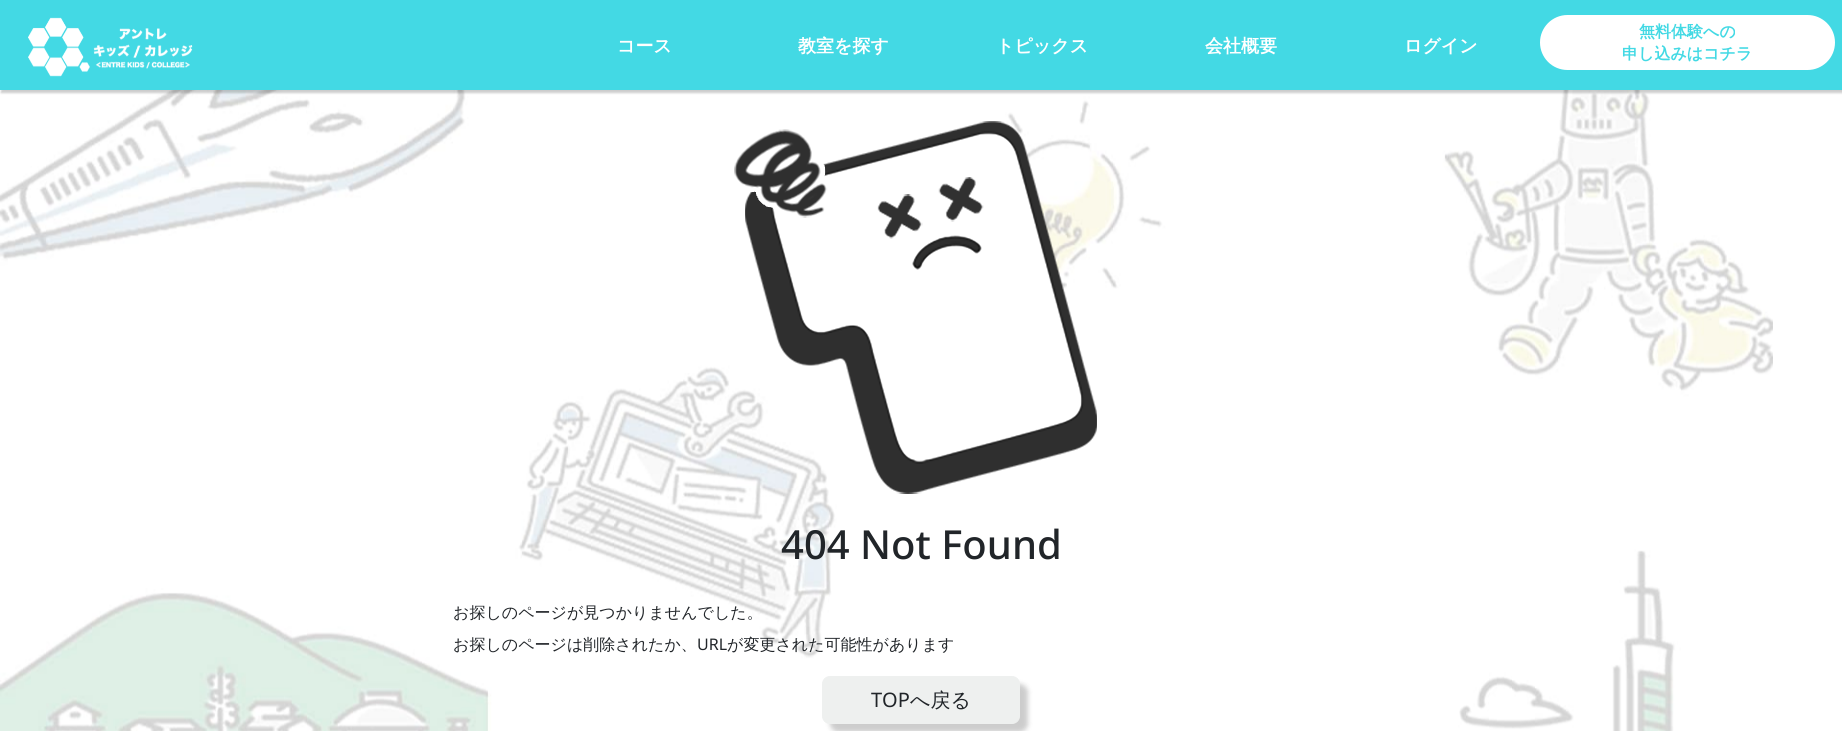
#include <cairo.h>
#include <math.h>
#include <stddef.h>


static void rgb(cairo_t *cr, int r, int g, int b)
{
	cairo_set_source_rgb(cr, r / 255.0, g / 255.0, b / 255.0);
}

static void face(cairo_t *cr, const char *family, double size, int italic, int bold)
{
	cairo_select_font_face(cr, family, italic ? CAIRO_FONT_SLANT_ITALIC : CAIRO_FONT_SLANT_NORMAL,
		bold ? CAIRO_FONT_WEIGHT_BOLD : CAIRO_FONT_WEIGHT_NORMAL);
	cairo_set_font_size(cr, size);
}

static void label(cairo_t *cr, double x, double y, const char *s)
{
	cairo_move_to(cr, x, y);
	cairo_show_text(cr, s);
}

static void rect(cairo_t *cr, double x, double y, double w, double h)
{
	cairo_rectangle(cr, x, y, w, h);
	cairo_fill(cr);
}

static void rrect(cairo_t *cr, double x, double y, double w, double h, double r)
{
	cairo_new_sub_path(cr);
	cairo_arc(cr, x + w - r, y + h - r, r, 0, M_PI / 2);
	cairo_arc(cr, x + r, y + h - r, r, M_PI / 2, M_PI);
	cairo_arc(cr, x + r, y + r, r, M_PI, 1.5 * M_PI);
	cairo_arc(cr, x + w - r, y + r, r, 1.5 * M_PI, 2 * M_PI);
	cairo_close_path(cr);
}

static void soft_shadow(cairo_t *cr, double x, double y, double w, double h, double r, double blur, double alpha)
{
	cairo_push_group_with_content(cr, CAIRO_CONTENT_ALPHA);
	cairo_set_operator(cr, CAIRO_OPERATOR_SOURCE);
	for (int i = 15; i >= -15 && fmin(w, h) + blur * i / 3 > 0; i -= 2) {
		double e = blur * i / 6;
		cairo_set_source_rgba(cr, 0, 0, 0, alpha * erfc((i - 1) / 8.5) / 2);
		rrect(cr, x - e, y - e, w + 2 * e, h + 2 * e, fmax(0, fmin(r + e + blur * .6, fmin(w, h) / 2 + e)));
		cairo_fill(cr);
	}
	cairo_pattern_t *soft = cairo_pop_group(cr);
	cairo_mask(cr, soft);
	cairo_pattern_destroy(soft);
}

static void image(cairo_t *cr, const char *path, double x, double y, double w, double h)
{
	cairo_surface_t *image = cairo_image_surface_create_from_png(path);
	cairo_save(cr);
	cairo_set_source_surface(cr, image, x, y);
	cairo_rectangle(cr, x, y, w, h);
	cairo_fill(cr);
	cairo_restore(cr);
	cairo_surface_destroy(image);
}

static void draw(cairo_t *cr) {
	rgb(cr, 255, 255, 255);
	cairo_paint(cr);
	image(cr, "image0.png", 0, 90, 1773, 641);
	rgb(cr, 0, 0, 0);
	soft_shadow(cr, 1, 1, 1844, 92, 0, 1, 0.2);
	rgb(cr, 67, 217, 228);
	rect(cr, 0, 0, 1842, 90);
	image(cr, "image1.png", 28, 17, 165, 60);
	face(cr, "WenQuanYi Zen Hei", 18, 0, 1);
	rgb(cr, 255, 255, 255);
	label(cr, 617, 52, "コース");
	label(cr, 798, 52, "教室を探す");
	label(cr, 996, 52, "トピックス");
	label(cr, 1205, 52, "会社概要");
	label(cr, 1404, 52, "ログイン");
	rrect(cr, 1540, 15, 295, 55, 27.5);
	cairo_fill(cr);
	face(cr, "WenQuanYi Zen Hei", 16, 0, 1);
	rgb(cr, 67, 217, 228);
	label(cr, 1639, 37, "無料体験への");
	label(cr, 1622, 59, "申し込みはコチラ");
	image(cr, "image2.png", 734, 121, 363, 373);
	face(cr, "Noto Sans Medium", 40, 0, 0);
	rgb(cr, 33, 37, 41);
	label(cr, 781, 559, "404 Not Found");
	face(cr, "WenQuanYi Zen Hei Medium", 16, 0, 0);
	label(cr, 453, 618, "お探しのページが見つかりませんでした。");
	label(cr, 453, 650, "お探しのページは削除されたか、");
	face(cr, "Noto Sans", 16, 0, 0);
	label(cr, 697, 650, "URL");
	face(cr, "WenQuanYi Zen Hei Medium", 16, 0, 0);
	label(cr, 727, 650, "が変更された可能性があります");
	rgb(cr, 0, 0, 0);
	soft_shadow(cr, 830, 684, 198, 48, 8, 2.5, 0.2);
	rgb(cr, 238, 240, 239);
	rrect(cr, 822.5, 676.5, 197, 47, 7.5);
	cairo_fill_preserve(cr);
	cairo_set_line_width(cr, 1);
	cairo_stroke(cr);
	face(cr, "Noto Sans", 20, 0, 0);
	rgb(cr, 33, 37, 41);
	label(cr, 871, 707, "TOP");
	face(cr, "WenQuanYi Zen Hei Medium", 20, 0, 0);
	label(cr, 910, 707, "へ戻る");
}

int main(void) {
	cairo_surface_t *surface = cairo_image_surface_create(CAIRO_FORMAT_RGB24, 1842, 731);
	cairo_t *cr = cairo_create(surface);
	cairo_font_options_t *options = cairo_font_options_create();
	cairo_font_options_set_hint_metrics(options, CAIRO_HINT_METRICS_OFF);
	cairo_font_options_set_hint_style(options, CAIRO_HINT_STYLE_NONE);
	cairo_set_font_options(cr, options);
	cairo_set_miter_limit(cr, 4);
	draw(cr);
	cairo_surface_write_to_png(surface, "render.png");
	cairo_font_options_destroy(options);
	cairo_destroy(cr);
	cairo_surface_destroy(surface);
	return 0;
}
